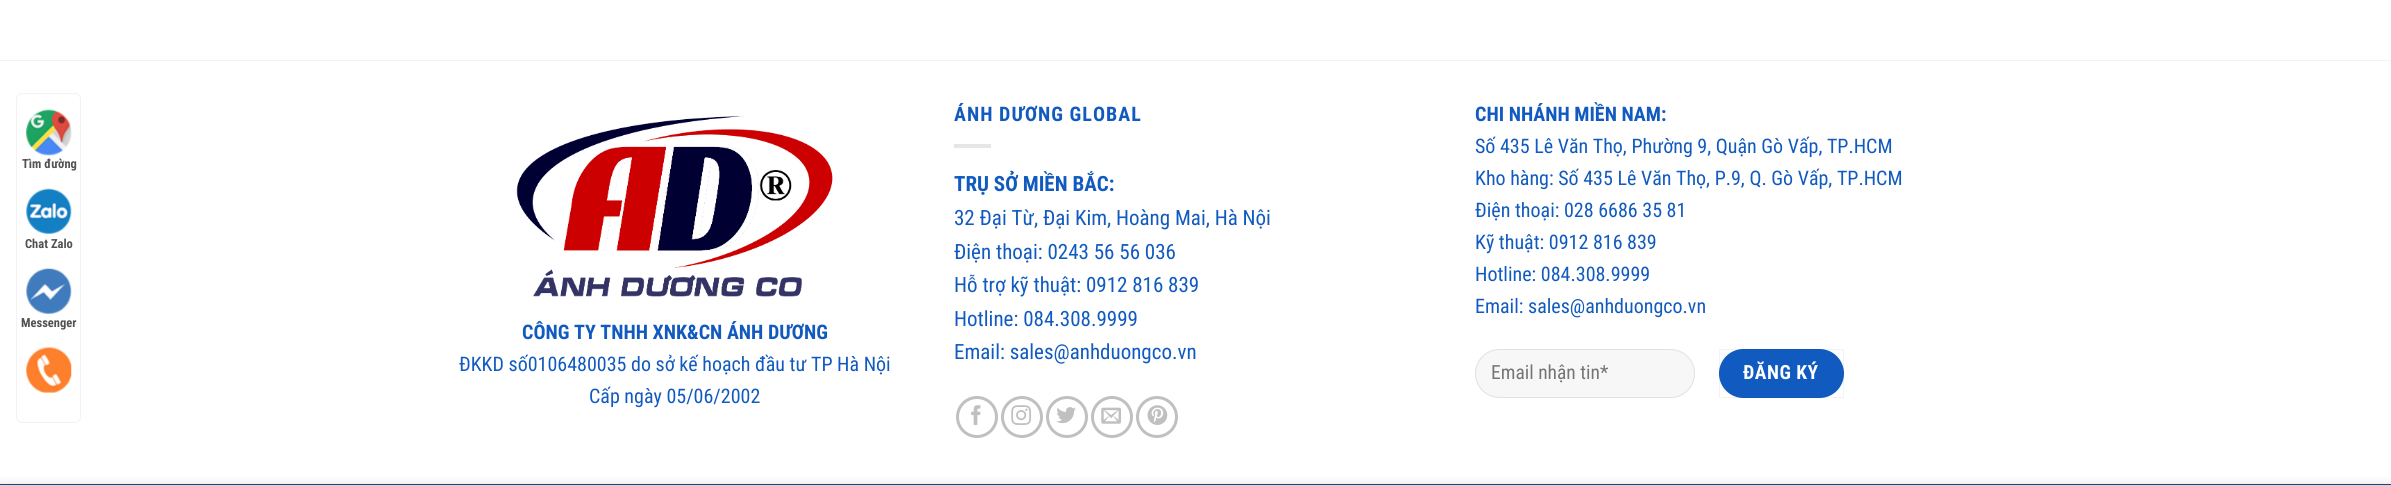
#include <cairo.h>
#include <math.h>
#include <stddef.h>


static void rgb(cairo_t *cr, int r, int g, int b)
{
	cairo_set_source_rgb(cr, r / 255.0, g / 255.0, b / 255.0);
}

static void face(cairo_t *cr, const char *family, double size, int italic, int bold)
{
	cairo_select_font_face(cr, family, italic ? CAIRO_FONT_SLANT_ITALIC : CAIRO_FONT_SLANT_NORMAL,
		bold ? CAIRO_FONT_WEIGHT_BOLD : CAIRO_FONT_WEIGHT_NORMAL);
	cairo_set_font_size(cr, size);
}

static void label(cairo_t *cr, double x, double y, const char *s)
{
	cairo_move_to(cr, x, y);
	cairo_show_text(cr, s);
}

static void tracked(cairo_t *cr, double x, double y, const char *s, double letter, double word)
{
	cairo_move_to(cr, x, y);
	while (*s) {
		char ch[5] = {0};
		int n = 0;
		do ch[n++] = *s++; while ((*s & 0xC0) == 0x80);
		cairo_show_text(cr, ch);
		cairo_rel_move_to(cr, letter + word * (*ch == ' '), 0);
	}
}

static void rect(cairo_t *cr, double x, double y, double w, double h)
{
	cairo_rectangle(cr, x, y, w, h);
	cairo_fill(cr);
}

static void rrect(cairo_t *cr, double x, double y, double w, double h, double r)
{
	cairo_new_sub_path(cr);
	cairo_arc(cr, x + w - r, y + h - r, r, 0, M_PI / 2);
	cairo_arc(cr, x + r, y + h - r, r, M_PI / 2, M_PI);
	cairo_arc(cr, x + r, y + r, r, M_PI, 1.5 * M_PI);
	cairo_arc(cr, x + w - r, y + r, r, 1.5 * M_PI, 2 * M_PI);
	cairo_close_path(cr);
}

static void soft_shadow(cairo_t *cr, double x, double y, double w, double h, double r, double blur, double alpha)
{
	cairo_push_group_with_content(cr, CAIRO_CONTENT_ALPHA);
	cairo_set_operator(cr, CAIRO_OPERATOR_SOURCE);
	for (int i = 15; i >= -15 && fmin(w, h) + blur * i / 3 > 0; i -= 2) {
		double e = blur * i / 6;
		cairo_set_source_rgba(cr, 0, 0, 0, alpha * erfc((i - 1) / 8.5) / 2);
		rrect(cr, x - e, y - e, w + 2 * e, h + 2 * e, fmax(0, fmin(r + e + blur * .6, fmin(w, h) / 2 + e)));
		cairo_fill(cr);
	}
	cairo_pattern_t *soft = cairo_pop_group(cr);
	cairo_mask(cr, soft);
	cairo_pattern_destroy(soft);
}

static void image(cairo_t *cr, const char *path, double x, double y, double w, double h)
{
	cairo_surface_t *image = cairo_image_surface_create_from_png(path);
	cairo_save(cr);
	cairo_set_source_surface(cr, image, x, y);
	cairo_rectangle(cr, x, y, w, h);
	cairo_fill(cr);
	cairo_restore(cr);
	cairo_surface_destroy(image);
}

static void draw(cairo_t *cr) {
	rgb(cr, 255, 255, 255);
	cairo_paint(cr);
	rrect(cr, 16.5, 93.5, 64, 329, 5.5);
	rgb(cr, 242, 242, 242);
	cairo_set_line_width(cr, 1);
	cairo_stroke(cr);
	image(cr, "image0.png", 26, 109, 46, 47);
	face(cr, "Roboto Condensed", 12.5, 0, 1);
	rgb(cr, 81, 81, 81);
	label(cr, 22, 168, "Tìm đường");
	image(cr, "image1.png", 26, 188, 46, 46);
	label(cr, 25, 248, "Chat Zalo");
	image(cr, "image2.png", 26, 268, 46, 46);
	label(cr, 21, 327, "Messenger");
	image(cr, "image3.png", 26, 346, 46, 47);
	rgb(cr, 242, 242, 242);
	rect(cr, 0, 60, 2391, 1);
	image(cr, "image4.png", 516, 115, 317, 182);
	face(cr, "Roboto Condensed", 20, 0, 1);
	rgb(cr, 17, 90, 191);
	label(cr, 522, 339, "CÔNG TY TNHH XNK&CN ÁNH DƯƠNG");
	face(cr, "Roboto Condensed", 20, 0, 0);
	label(cr, 459, 371, "ĐKKD số0106480035 do sở kế hoạch đầu tư TP Hà Nội");
	label(cr, 589, 403, "Cấp ngày 05/06/2002");
	face(cr, "Roboto Condensed", 20, 0, 1);
	tracked(cr, 954, 121, "ÁNH DƯƠNG GLOBAL", 1, 0);
	rgb(cr, 230, 230, 230);
	rect(cr, 954, 144, 37, 4);
	face(cr, "Roboto Condensed", 21, 0, 1);
	rgb(cr, 17, 90, 191);
	label(cr, 954, 191, "TRỤ SỞ MIỀN BẮC:");
	face(cr, "Roboto Condensed", 21, 0, 0);
	label(cr, 954, 225, "32 Đại Từ, Đại Kim, Hoàng Mai, Hà Nội");
	label(cr, 954, 259, "Điện thoại: 0243 56 56 036");
	label(cr, 954, 292, "Hỗ trợ kỹ thuật: 0912 816 839");
	label(cr, 954, 326, "Hotline: 084.308.9999");
	label(cr, 954, 359, "Email: sales@anhduongco.vn");
	cairo_new_path(cr);
	cairo_arc(cr, 977, 417, 19.5, 0, 2 * M_PI);
	rgb(cr, 192, 192, 192);
	cairo_set_line_width(cr, 3);
	cairo_stroke(cr);
	image(cr, "image5.png", 971, 405, 10, 20);
	cairo_arc(cr, 1022, 417, 19.5, 0, 2 * M_PI);
	cairo_stroke(cr);
	image(cr, "image6.png", 1011, 405, 20, 20);
	cairo_arc(cr, 1067, 417, 19.5, 0, 2 * M_PI);
	cairo_stroke(cr);
	image(cr, "image7.png", 1056, 407, 20, 17);
	cairo_arc(cr, 1112, 417, 19.5, 0, 2 * M_PI);
	cairo_stroke(cr);
	image(cr, "image8.png", 1101, 407, 20, 17);
	cairo_arc(cr, 1157, 417, 19.5, 0, 2 * M_PI);
	cairo_stroke(cr);
	image(cr, "image9.png", 1147, 405, 21, 20);
	face(cr, "Roboto Condensed", 20, 0, 1);
	rgb(cr, 17, 90, 191);
	label(cr, 1475, 121, "CHI NHÁNH MIỀN NAM:");
	face(cr, "Roboto Condensed", 20, 0, 0);
	label(cr, 1475, 153, "Số 435 Lê Văn Thọ, Phường 9, Quận Gò Vấp, TP.HCM");
	label(cr, 1475, 185, "Kho hàng: Số 435 Lê Văn Thọ, P.9, Q. Gò Vấp, TP.HCM");
	label(cr, 1475, 217, "Điện thoại: 028 6686 35 81");
	label(cr, 1475, 249, "Kỹ thuật: 0912 816 839");
	label(cr, 1475, 281, "Hotline: 084.308.9999");
	label(cr, 1475, 313, "Email: sales@anhduongco.vn");
	rgb(cr, 247, 247, 247);
	rrect(cr, 1475, 349, 220, 49, 24.5);
	cairo_fill(cr);
	rrect(cr, 1475.5, 349.5, 219, 48, 24);
	cairo_set_source_rgba(cr, 0, 0, 0, 0.09);
	cairo_set_line_width(cr, 1);
	cairo_stroke(cr);
	face(cr, "Roboto Condensed", 19.5, 0, 0);
	rgb(cr, 117, 117, 117);
	label(cr, 1491, 379, "Email nhận tin*");
	rgb(cr, 17, 90, 191);
	rrect(cr, 1719, 349, 125, 49, 24.5);
	cairo_fill(cr);
	cairo_rectangle(cr, 1719.5, 349.5, 124, 48);
	cairo_set_source_rgba(cr, 0, 0, 0, 0.05);
	cairo_stroke(cr);
	face(cr, "Roboto Condensed", 19.5, 0, 1);
	rgb(cr, 255, 255, 255);
	tracked(cr, 1743, 379, "ĐĂNG KÝ", 0.5, 0);
	rgb(cr, 1, 87, 140);
	rect(cr, 0, 484, 2391, 1);
	rgb(cr, 0, 0, 0);
	soft_shadow(cr, 0, 485, 2391, 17, 0, 5.5, 0.14);
}

int main(void) {
	cairo_surface_t *surface = cairo_image_surface_create(CAIRO_FORMAT_RGB24, 2391, 485);
	cairo_t *cr = cairo_create(surface);
	cairo_font_options_t *options = cairo_font_options_create();
	cairo_font_options_set_hint_metrics(options, CAIRO_HINT_METRICS_OFF);
	cairo_font_options_set_hint_style(options, CAIRO_HINT_STYLE_NONE);
	cairo_set_font_options(cr, options);
	cairo_set_miter_limit(cr, 4);
	draw(cr);
	cairo_surface_write_to_png(surface, "render.png");
	cairo_font_options_destroy(options);
	cairo_destroy(cr);
	cairo_surface_destroy(surface);
	return 0;
}
